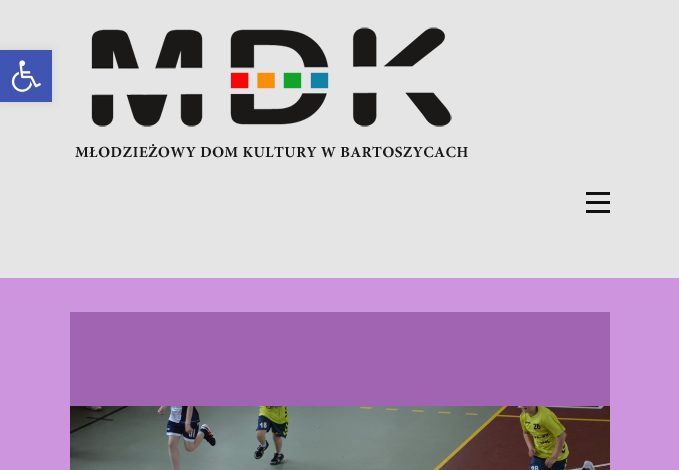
#include <cairo.h>
#include <math.h>
#include <stddef.h>


static void rgb(cairo_t *cr, int r, int g, int b)
{
	cairo_set_source_rgb(cr, r / 255.0, g / 255.0, b / 255.0);
}

static void rect(cairo_t *cr, double x, double y, double w, double h)
{
	cairo_rectangle(cr, x, y, w, h);
	cairo_fill(cr);
}

static void rrect(cairo_t *cr, double x, double y, double w, double h, double r)
{
	cairo_new_sub_path(cr);
	cairo_arc(cr, x + w - r, y + h - r, r, 0, M_PI / 2);
	cairo_arc(cr, x + r, y + h - r, r, M_PI / 2, M_PI);
	cairo_arc(cr, x + r, y + r, r, M_PI, 1.5 * M_PI);
	cairo_arc(cr, x + w - r, y + r, r, 1.5 * M_PI, 2 * M_PI);
	cairo_close_path(cr);
}

static void soft_shadow(cairo_t *cr, double x, double y, double w, double h, double r, double blur, double alpha)
{
	cairo_push_group_with_content(cr, CAIRO_CONTENT_ALPHA);
	cairo_set_operator(cr, CAIRO_OPERATOR_SOURCE);
	for (int i = 15; i >= -15 && fmin(w, h) + blur * i / 3 > 0; i -= 2) {
		double e = blur * i / 6;
		cairo_set_source_rgba(cr, 0, 0, 0, alpha * erfc((i - 1) / 8.5) / 2);
		rrect(cr, x - e, y - e, w + 2 * e, h + 2 * e, fmax(0, fmin(r + e + blur * .6, fmin(w, h) / 2 + e)));
		cairo_fill(cr);
	}
	cairo_pattern_t *soft = cairo_pop_group(cr);
	cairo_mask(cr, soft);
	cairo_pattern_destroy(soft);
}

static void image(cairo_t *cr, const char *path, double x, double y, double w, double h)
{
	cairo_surface_t *image = cairo_image_surface_create_from_png(path);
	cairo_save(cr);
	cairo_set_source_surface(cr, image, x, y);
	cairo_rectangle(cr, x, y, w, h);
	cairo_fill(cr);
	cairo_restore(cr);
	cairo_surface_destroy(image);
}

static void draw(cairo_t *cr) {
	rgb(cr, 229, 229, 229);
	cairo_paint(cr);
	rgb(cr, 0, 0, 0);
	soft_shadow(cr, 0, 50, 52, 52, 0, 5, 0.1);
	rgb(cr, 64, 84, 178);
	rect(cr, 0, 50, 52, 52);
	image(cr, "image0.png", 11, 60, 30, 32);
	image(cr, "image1.png", 75, 27, 393, 131);
	rgb(cr, 17, 17, 17);
	rect(cr, 586, 192, 24, 3);
	rect(cr, 586, 201, 24, 3);
	rect(cr, 586, 210, 24, 3);
	rgb(cr, 205, 149, 222);
	rect(cr, 0, 278, 679, 192);
	rgb(cr, 161, 100, 179);
	rect(cr, 70, 312, 540, 94);
	image(cr, "image2.png", 70, 406, 540, 64);
}

int main(void) {
	cairo_surface_t *surface = cairo_image_surface_create(CAIRO_FORMAT_RGB24, 679, 470);
	cairo_t *cr = cairo_create(surface);
	cairo_font_options_t *options = cairo_font_options_create();
	cairo_font_options_set_hint_metrics(options, CAIRO_HINT_METRICS_OFF);
	cairo_font_options_set_hint_style(options, CAIRO_HINT_STYLE_NONE);
	cairo_set_font_options(cr, options);
	cairo_set_miter_limit(cr, 4);
	draw(cr);
	cairo_surface_write_to_png(surface, "render.png");
	cairo_font_options_destroy(options);
	cairo_destroy(cr);
	cairo_surface_destroy(surface);
	return 0;
}
